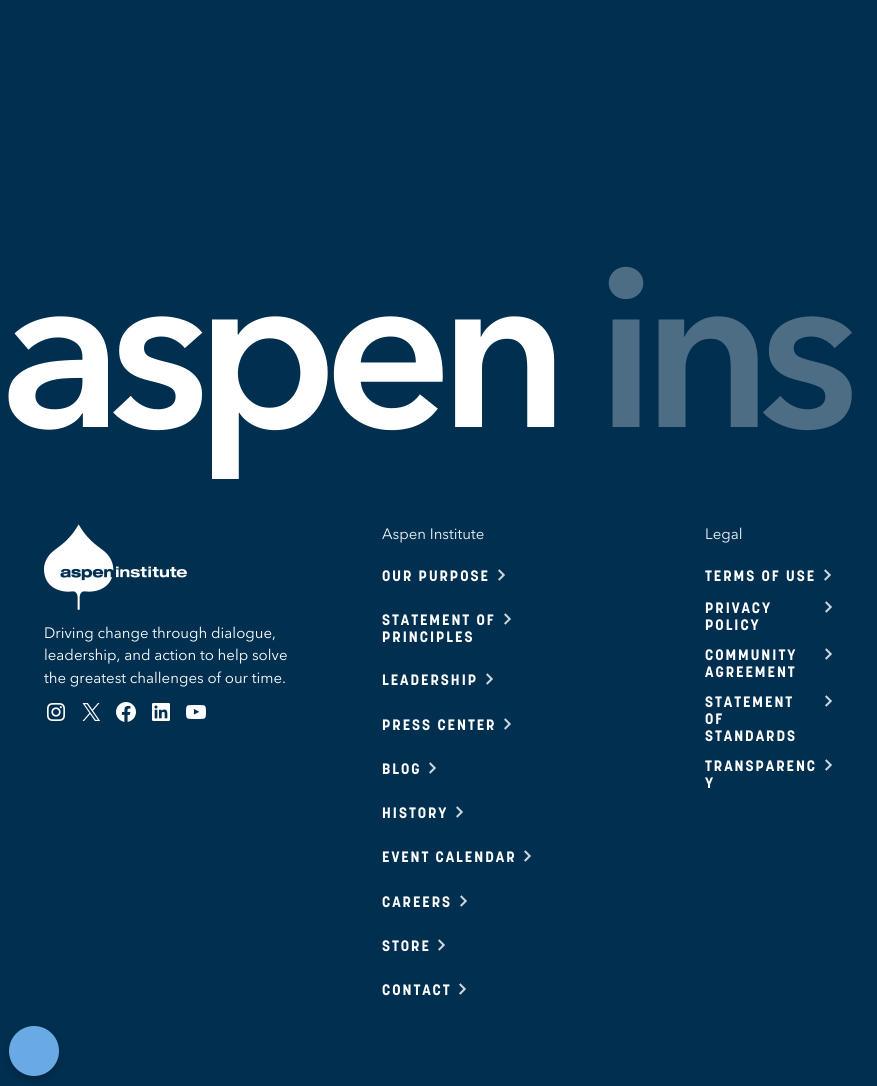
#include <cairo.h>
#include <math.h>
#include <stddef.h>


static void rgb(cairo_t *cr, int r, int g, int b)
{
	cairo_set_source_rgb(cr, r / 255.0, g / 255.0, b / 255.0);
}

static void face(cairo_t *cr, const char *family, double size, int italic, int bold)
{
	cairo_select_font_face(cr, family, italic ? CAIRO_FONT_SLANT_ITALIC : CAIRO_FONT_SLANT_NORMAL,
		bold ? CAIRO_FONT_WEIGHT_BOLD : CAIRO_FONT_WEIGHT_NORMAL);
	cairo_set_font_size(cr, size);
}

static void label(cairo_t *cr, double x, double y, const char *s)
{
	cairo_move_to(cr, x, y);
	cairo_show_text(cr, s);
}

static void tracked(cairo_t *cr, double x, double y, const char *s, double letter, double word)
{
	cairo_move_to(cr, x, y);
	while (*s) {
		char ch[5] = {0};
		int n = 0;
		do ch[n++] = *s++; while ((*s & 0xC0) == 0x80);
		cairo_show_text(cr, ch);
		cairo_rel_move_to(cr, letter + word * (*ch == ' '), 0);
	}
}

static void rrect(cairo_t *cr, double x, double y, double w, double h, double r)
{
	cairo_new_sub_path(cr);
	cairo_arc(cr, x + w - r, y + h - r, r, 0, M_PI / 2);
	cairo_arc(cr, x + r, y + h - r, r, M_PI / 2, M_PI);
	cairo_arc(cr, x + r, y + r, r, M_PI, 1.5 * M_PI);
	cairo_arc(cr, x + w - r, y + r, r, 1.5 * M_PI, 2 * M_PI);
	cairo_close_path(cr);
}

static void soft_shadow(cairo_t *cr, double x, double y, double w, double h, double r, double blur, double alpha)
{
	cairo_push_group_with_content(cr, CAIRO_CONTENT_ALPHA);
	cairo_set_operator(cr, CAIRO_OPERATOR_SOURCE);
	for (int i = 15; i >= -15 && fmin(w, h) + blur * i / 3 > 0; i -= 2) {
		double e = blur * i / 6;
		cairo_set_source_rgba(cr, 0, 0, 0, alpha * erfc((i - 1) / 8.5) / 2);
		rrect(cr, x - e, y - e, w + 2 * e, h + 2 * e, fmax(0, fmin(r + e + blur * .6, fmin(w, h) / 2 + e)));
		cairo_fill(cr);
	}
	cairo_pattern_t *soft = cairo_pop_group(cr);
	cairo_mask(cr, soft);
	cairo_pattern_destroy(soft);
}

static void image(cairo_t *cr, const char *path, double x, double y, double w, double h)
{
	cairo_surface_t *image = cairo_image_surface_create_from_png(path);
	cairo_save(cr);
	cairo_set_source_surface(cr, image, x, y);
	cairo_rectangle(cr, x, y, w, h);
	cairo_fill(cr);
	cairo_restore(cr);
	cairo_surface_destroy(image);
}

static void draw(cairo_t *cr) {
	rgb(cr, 1, 47, 80);
	cairo_paint(cr);
	cairo_save(cr);
	cairo_rectangle(cr, 0, 233, 877, 246);
	cairo_clip(cr);
	face(cr, "Avenir Next SemiBold", 224, 0, 0);
	rgb(cr, 255, 255, 255);
	tracked(cr, 0, 427, "aspen", -13.5, 0);
	cairo_restore(cr);
	face(cr, "Avenir Next SemiBold", 224, 0, 0);
	rgb(cr, 77, 109, 133);
	tracked(cr, 596, 427, "ins", -13.5, 0);
	image(cr, "image0.png", 44, 524, 143, 86);
	face(cr, "Avenir Next", 15, 0, 0);
	rgb(cr, 255, 255, 255);
	label(cr, 44, 638, "Driving change through dialogue,");
	label(cr, 44, 660, "leadership, and action to help solve");
	label(cr, 44, 683, "the greatest challenges of our time.");
	image(cr, "image1.png", 47, 703, 18, 18);
	image(cr, "image2.png", 82, 703, 18, 18);
	image(cr, "image3.png", 116, 702, 20, 20);
	image(cr, "image4.png", 152, 703, 18, 18);
	image(cr, "image5.png", 186, 705, 20, 14);
	rgb(cr, 240, 244, 247);
	label(cr, 382, 539, "Aspen Institute");
	face(cr, "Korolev", 15, 0, 1);
	rgb(cr, 255, 255, 255);
	tracked(cr, 382, 581, "OUR PURPOSE", 2, 0);
	image(cr, "image6.png", 498, 569, 7, 12);
	tracked(cr, 382, 625, "STATEMENT OF", 2, 0);
	image(cr, "image7.png", 504, 613, 7, 12);
	tracked(cr, 382, 642, "PRINCIPLES", 2, 0);
	tracked(cr, 382, 685, "LEADERSHIP", 2, 0);
	image(cr, "image6.png", 486, 673, 7, 12);
	tracked(cr, 382, 730, "PRESS CENTER", 2, 0);
	image(cr, "image7.png", 504, 718, 7, 12);
	tracked(cr, 382, 774, "BLOG", 2, 0);
	image(cr, "image6.png", 429, 762, 7, 12);
	tracked(cr, 382, 818, "HISTORY", 2, 0);
	image(cr, "image6.png", 456, 806, 7, 12);
	tracked(cr, 382, 862, "EVENT CALENDAR", 2, 0);
	image(cr, "image6.png", 524, 850, 7, 12);
	tracked(cr, 382, 907, "CAREERS", 2, 0);
	image(cr, "image6.png", 460, 895, 7, 12);
	tracked(cr, 382, 951, "STORE", 2, 0);
	image(cr, "image6.png", 438, 939, 7, 12);
	tracked(cr, 382, 995, "CONTACT", 2, 0);
	image(cr, "image6.png", 459, 983, 7, 12);
	face(cr, "Avenir Next", 15, 0, 0);
	rgb(cr, 240, 244, 247);
	label(cr, 705, 539, "Legal");
	face(cr, "Korolev", 15, 0, 1);
	rgb(cr, 255, 255, 255);
	tracked(cr, 705, 581, "TERMS OF USE", 2, 0);
	image(cr, "image6.png", 824, 569, 7, 12);
	tracked(cr, 705, 613, "PRIVACY", 2, 0);
	image(cr, "image8.png", 825, 601, 7, 12);
	tracked(cr, 705, 630, "POLICY", 2, 0);
	tracked(cr, 705, 660, "COMMUNITY", 2, 0);
	image(cr, "image6.png", 825, 648, 7, 12);
	tracked(cr, 705, 677, "AGREEMENT", 2, 0);
	tracked(cr, 705, 707, "STATEMENT", 2, 0);
	image(cr, "image6.png", 825, 695, 7, 12);
	tracked(cr, 705, 724, "OF", 2, 0);
	tracked(cr, 705, 741, "STANDARDS", 2, 0);
	tracked(cr, 705, 771, "TRANSPARENC", 2, 0);
	image(cr, "image6.png", 825, 759, 7, 12);
	tracked(cr, 705, 788, "Y", 2, 0);
	rgb(cr, 0, 0, 0);
	soft_shadow(cr, 9, 1030, 50, 50, 25, 4, 0.2);
	rgb(cr, 106, 170, 228);
	cairo_arc(cr, 34, 1051, 25, 0, 2 * M_PI);
	cairo_fill(cr);
}

int main(void) {
	cairo_surface_t *surface = cairo_image_surface_create(CAIRO_FORMAT_RGB24, 877, 1086);
	cairo_t *cr = cairo_create(surface);
	cairo_font_options_t *options = cairo_font_options_create();
	cairo_font_options_set_hint_metrics(options, CAIRO_HINT_METRICS_OFF);
	cairo_font_options_set_hint_style(options, CAIRO_HINT_STYLE_NONE);
	cairo_set_font_options(cr, options);
	cairo_set_miter_limit(cr, 4);
	draw(cr);
	cairo_surface_write_to_png(surface, "render.png");
	cairo_font_options_destroy(options);
	cairo_destroy(cr);
	cairo_surface_destroy(surface);
	return 0;
}
